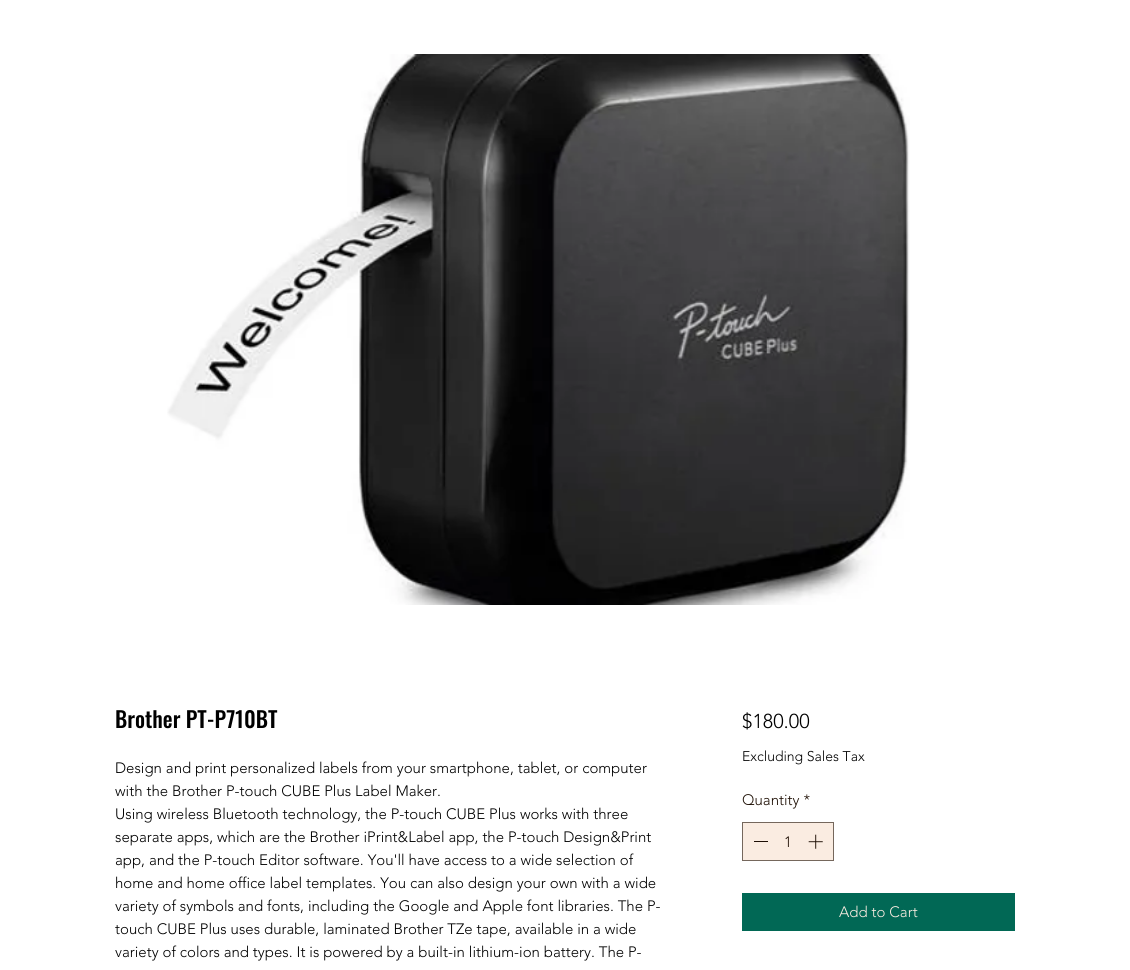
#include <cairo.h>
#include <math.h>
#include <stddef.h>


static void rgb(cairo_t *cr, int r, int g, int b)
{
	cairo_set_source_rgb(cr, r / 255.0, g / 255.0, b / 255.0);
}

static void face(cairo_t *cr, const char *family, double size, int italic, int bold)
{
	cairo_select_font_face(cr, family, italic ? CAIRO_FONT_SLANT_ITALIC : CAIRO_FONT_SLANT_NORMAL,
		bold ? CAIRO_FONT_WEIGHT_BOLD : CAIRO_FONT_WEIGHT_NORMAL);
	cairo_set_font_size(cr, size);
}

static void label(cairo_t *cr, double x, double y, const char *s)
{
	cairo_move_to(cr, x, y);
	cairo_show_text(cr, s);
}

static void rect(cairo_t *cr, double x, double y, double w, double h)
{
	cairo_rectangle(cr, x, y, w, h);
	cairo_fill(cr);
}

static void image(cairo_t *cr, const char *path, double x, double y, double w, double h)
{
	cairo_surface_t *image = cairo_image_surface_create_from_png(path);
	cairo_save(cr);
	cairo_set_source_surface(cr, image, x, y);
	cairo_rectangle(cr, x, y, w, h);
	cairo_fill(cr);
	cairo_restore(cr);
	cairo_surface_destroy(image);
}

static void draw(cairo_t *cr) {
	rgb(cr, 255, 255, 255);
	cairo_paint(cr);
	image(cr, "image0.png", 167, 54, 743, 551);
	face(cr, "Oswald Medium", 22, 0, 0);
	rgb(cr, 0, 0, 0);
	label(cr, 115, 728, "Brother PT-P710BT");
	face(cr, "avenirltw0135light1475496 Light", 15, 0, 0);
	label(cr, 115, 773, "Design and print personalized labels from your smartphone, tablet, or computer");
	label(cr, 115, 796, "with the Brother P-touch CUBE Plus Label Maker.");
	label(cr, 115, 819, "Using wireless Bluetooth technology, the P-touch CUBE Plus works with three");
	label(cr, 115, 842, "separate apps, which are the Brother iPrint&Label app, the P-touch Design&Print");
	label(cr, 115, 865, "app, and the P-touch Editor software. You'll have access to a wide selection of");
	label(cr, 115, 888, "home and home office label templates. You can also design your own with a wide");
	label(cr, 115, 911, "variety of symbols and fonts, including the Google and Apple font libraries. The P-");
	label(cr, 115, 934, "touch CUBE Plus uses durable, laminated Brother TZe tape, available in a wide");
	label(cr, 115, 957, "variety of colors and types. It is powered by a built-in lithium-ion battery. The P-");
	face(cr, "avenirltw0135light1475496 Light", 20, 0, 0);
	label(cr, 742, 728, "$180.00");
	face(cr, "avenirltw0135light1475496 Light", 14, 0, 0);
	label(cr, 742, 761, "Excluding Sales Tax");
	face(cr, "avenirltw0135light1475496 Light", 15, 0, 0);
	rgb(cr, 29, 14, 3);
	label(cr, 742, 805, "Quantity *");
	rgb(cr, 250, 236, 225);
	cairo_rectangle(cr, 742.5, 822.5, 91, 38);
	cairo_fill_preserve(cr);
	rgb(cr, 117, 103, 92);
	cairo_set_line_width(cr, 1);
	cairo_stroke(cr);
	rgb(cr, 29, 14, 3);
	rect(cr, 754, 841, 14, 1);
	label(cr, 784, 847, "1");
	image(cr, "image1.png", 808, 834, 15, 15);
	rgb(cr, 1, 104, 85);
	rect(cr, 742, 893, 273, 38);
	rgb(cr, 250, 236, 225);
	label(cr, 839, 917, "Add to Cart");
}

int main(void) {
	cairo_surface_t *surface = cairo_image_surface_create(CAIRO_FORMAT_RGB24, 1130, 970);
	cairo_t *cr = cairo_create(surface);
	cairo_font_options_t *options = cairo_font_options_create();
	cairo_font_options_set_hint_metrics(options, CAIRO_HINT_METRICS_OFF);
	cairo_font_options_set_hint_style(options, CAIRO_HINT_STYLE_NONE);
	cairo_set_font_options(cr, options);
	cairo_set_miter_limit(cr, 4);
	draw(cr);
	cairo_surface_write_to_png(surface, "render.png");
	cairo_font_options_destroy(options);
	cairo_destroy(cr);
	cairo_surface_destroy(surface);
	return 0;
}
